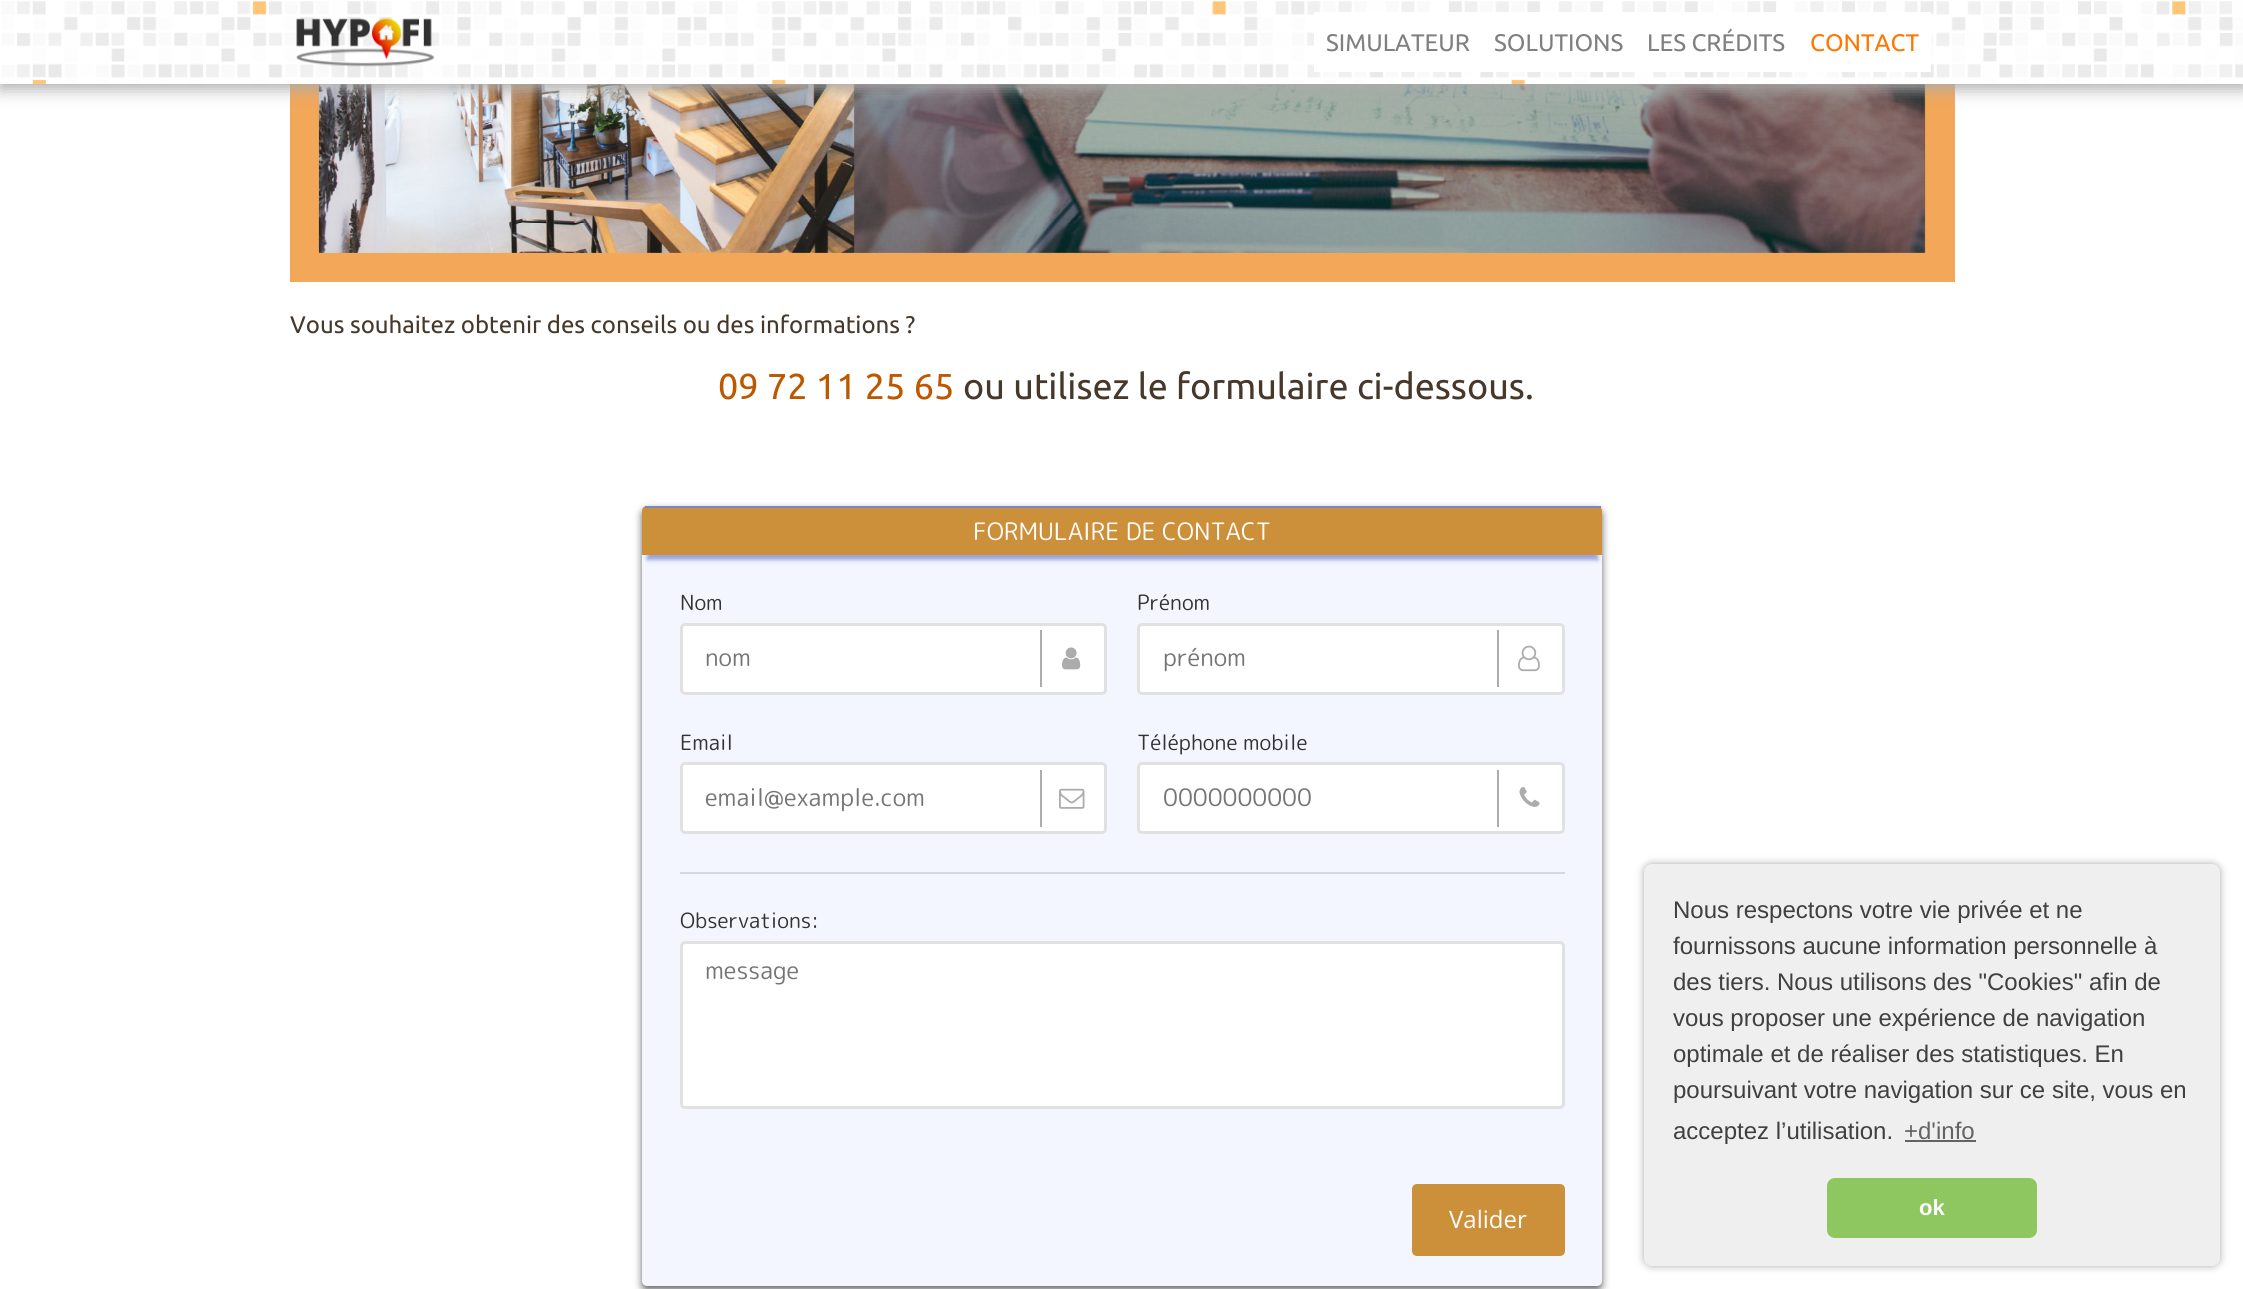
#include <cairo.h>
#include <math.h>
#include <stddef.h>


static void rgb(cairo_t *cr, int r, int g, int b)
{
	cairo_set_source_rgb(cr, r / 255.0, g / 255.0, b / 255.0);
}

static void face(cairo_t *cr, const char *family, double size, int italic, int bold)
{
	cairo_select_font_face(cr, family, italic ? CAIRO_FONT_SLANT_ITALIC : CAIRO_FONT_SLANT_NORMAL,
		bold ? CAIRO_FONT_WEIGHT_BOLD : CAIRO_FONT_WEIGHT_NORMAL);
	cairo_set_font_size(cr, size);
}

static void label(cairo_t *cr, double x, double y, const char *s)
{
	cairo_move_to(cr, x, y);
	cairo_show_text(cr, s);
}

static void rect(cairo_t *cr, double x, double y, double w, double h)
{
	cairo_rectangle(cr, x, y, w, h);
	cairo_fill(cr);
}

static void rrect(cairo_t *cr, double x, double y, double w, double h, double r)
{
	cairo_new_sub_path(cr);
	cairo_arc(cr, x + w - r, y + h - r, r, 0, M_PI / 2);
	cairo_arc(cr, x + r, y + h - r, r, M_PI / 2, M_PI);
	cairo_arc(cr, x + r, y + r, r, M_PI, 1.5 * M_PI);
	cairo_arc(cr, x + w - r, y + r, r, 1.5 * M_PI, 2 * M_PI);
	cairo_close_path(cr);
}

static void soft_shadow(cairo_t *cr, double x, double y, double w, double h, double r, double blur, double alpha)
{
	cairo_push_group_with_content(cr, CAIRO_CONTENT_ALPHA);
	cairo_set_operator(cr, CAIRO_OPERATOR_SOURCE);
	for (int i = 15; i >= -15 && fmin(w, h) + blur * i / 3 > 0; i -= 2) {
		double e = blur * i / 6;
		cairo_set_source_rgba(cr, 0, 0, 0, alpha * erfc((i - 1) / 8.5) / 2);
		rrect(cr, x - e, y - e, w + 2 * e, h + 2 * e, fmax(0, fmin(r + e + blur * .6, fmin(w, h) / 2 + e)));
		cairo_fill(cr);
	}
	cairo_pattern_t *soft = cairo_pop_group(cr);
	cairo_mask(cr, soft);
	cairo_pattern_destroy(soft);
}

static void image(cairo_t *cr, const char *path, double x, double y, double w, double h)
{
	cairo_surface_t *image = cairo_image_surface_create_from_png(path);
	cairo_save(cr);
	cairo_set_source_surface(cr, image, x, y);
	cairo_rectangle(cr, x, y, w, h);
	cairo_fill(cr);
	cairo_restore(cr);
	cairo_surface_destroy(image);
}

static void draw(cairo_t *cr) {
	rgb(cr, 255, 255, 255);
	cairo_paint(cr);
	image(cr, "image2.png", 290, 84, 1665, 198);
	rgb(cr, 171, 171, 171);
	soft_shadow(cr, 0, 5, 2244, 84, 0, 8, 1);
	image(cr, "image0.png", 0, 0, 2243, 84);
	image(cr, "image1.png", 296, 17, 139, 50);
	rgb(cr, 255, 255, 255);
	rect(cr, 1314, 12, 321, 60);
	face(cr, "Ubuntu", 24, 0, 0);
	rgb(cr, 128, 128, 128);
	label(cr, 1326, 51, "SIMULATEUR");
	label(cr, 1494, 51, "SOLUTIONS");
	rgb(cr, 255, 255, 255);
	rect(cr, 1637, 12, 294, 60);
	rgb(cr, 128, 128, 128);
	label(cr, 1647, 51, "LES CRÉDITS");
	rgb(cr, 255, 119, 0);
	label(cr, 1810, 51, "CONTACT");
	rgb(cr, 70, 57, 43);
	label(cr, 290, 333, "Vous souhaitez obtenir des conseils ou des informations ?");
	face(cr, "Ubuntu", 36, 0, 0);
	rgb(cr, 189, 88, 0);
	label(cr, 718, 399, "09 72 11 25 65");
	rgb(cr, 70, 57, 43);
	label(cr, 963, 399, "ou utilisez le formulaire ci-dessous.");
	rgb(cr, 0, 0, 0);
	soft_shadow(cr, 642, 510, 960, 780, 5, 4, 0.6);
	rgb(cr, 243, 246, 255);
	rrect(cr, 642, 506, 960, 780, 5);
	cairo_fill(cr);
	rgb(cr, 63, 81, 181);
	soft_shadow(cr, 647, 519, 951, 41, 0, 2, 0.5);
	rgb(cr, 205, 144, 58);
	cairo_new_path(cr);
	cairo_move_to(cr, 647, 506);
	cairo_line_to(cr, 1597, 506);
	cairo_curve_to(cr, 1600, 506, 1602, 508, 1602, 511);
	cairo_line_to(cr, 1602, 555);
	cairo_line_to(cr, 642, 555);
	cairo_line_to(cr, 642, 511);
	cairo_curve_to(cr, 642, 508, 644, 506, 647, 506);
	cairo_close_path(cr);
	cairo_fill(cr);
	rgb(cr, 121, 134, 203);
	rect(cr, 645, 506, 956, 2);
	face(cr, "Rounded Mplus 1c", 24, 0, 0);
	rgb(cr, 255, 255, 255);
	label(cr, 973, 540, "FORMULAIRE DE CONTACT");
	face(cr, "Rounded Mplus 1c", 21, 0, 0);
	rgb(cr, 51, 51, 51);
	label(cr, 680, 610, "Nom");
	rgb(cr, 255, 255, 255);
	rrect(cr, 680, 623, 427, 72, 5);
	cairo_fill(cr);
	rrect(cr, 681.5, 624.5, 424, 69, 3.5);
	cairo_set_source_rgba(cr, 0, 0, 0, 0.12);
	cairo_set_line_width(cr, 3);
	cairo_stroke(cr);
	face(cr, "Rounded Mplus 1c", 24, 0, 0);
	rgb(cr, 117, 117, 117);
	label(cr, 705, 666, "nom");
	rgb(cr, 172, 172, 172);
	rect(cr, 1040, 630, 2, 57);
	image(cr, "image3.png", 1062, 647, 19, 23);
	face(cr, "Rounded Mplus 1c", 21, 0, 0);
	rgb(cr, 51, 51, 51);
	label(cr, 1137, 610, "Prénom");
	rgb(cr, 255, 255, 255);
	rrect(cr, 1137, 623, 428, 72, 5);
	cairo_fill(cr);
	rrect(cr, 1138.5, 624.5, 425, 69, 3.5);
	cairo_set_source_rgba(cr, 0, 0, 0, 0.12);
	cairo_stroke(cr);
	face(cr, "Rounded Mplus 1c", 24, 0, 0);
	rgb(cr, 117, 117, 117);
	label(cr, 1163, 666, "prénom");
	rgb(cr, 172, 172, 172);
	rect(cr, 1497, 630, 2, 57);
	image(cr, "image4.png", 1518, 645, 22, 27);
	face(cr, "Rounded Mplus 1c", 21, 0, 0);
	rgb(cr, 51, 51, 51);
	label(cr, 680, 750, "Email");
	rgb(cr, 255, 255, 255);
	rrect(cr, 680, 762, 427, 72, 5);
	cairo_fill(cr);
	rrect(cr, 681.5, 763.5, 424, 69, 3.5);
	cairo_set_source_rgba(cr, 0, 0, 0, 0.12);
	cairo_stroke(cr);
	face(cr, "Rounded Mplus 1c", 24, 0, 0);
	rgb(cr, 117, 117, 117);
	label(cr, 705, 806, "email@example.com");
	rgb(cr, 172, 172, 172);
	rect(cr, 1040, 770, 2, 57);
	image(cr, "image5.png", 1059, 788, 26, 21);
	face(cr, "Rounded Mplus 1c", 21, 0, 0);
	rgb(cr, 51, 51, 51);
	label(cr, 1137, 750, "Téléphone mobile");
	rgb(cr, 255, 255, 255);
	rrect(cr, 1137, 762, 428, 72, 5);
	cairo_fill(cr);
	rrect(cr, 1138.5, 763.5, 425, 69, 3.5);
	cairo_set_source_rgba(cr, 0, 0, 0, 0.12);
	cairo_stroke(cr);
	face(cr, "Rounded Mplus 1c", 24, 0, 0);
	rgb(cr, 117, 117, 117);
	label(cr, 1163, 806, "0000000000");
	rgb(cr, 172, 172, 172);
	rect(cr, 1497, 770, 2, 57);
	image(cr, "image6.png", 1519, 787, 21, 20);
	rgb(cr, 214, 216, 224);
	rect(cr, 680, 872, 885, 2);
	face(cr, "Rounded Mplus 1c", 21, 0, 0);
	rgb(cr, 51, 51, 51);
	label(cr, 680, 928, "Observations:");
	rgb(cr, 255, 255, 255);
	rrect(cr, 680, 941, 885, 168, 5);
	cairo_fill(cr);
	rrect(cr, 681.5, 942.5, 882, 165, 3.5);
	cairo_set_source_rgba(cr, 0, 0, 0, 0.12);
	cairo_stroke(cr);
	face(cr, "Rounded Mplus 1c", 24, 0, 0);
	rgb(cr, 117, 117, 117);
	label(cr, 705, 979, "message");
	rgb(cr, 205, 144, 58);
	rrect(cr, 1412, 1184, 153, 72, 5);
	cairo_fill(cr);
	face(cr, "Open Sans", 24, 0, 0);
	rgb(cr, 255, 255, 255);
	label(cr, 1449, 1228, "Valider");
	rgb(cr, 170, 170, 170);
	soft_shadow(cr, 1644, 864, 576, 402, 8, 4, 1);
	rgb(cr, 239, 239, 239);
	rrect(cr, 1644, 864, 576, 402, 8);
	cairo_fill(cr);
	face(cr, "Liberation Sans", 24, 0, 0);
	rgb(cr, 64, 64, 64);
	label(cr, 1673, 918, "Nous respectons votre vie privée et ne");
	label(cr, 1673, 954, "fournissons aucune information personnelle à");
	label(cr, 1673, 990, "des tiers. Nous utilisons des \"Cookies\" afin de");
	label(cr, 1673, 1026, "vous proposer une expérience de navigation");
	label(cr, 1673, 1062, "optimale et de réaliser des statistiques. En");
	label(cr, 1673, 1098, "poursuivant votre navigation sur ce site, vous en");
	label(cr, 1673, 1139, "acceptez l’utilisation.");
	rgb(cr, 99, 99, 99);
	label(cr, 1904, 1139, "+d'info");
	rect(cr, 1905, 1140, 71, 2);
	rgb(cr, 142, 199, 96);
	rrect(cr, 1827, 1178, 210, 60, 8);
	cairo_fill(cr);
	face(cr, "Liberation Sans", 22, 0, 1);
	rgb(cr, 255, 255, 255);
	label(cr, 1919, 1215, "ok");
}

int main(void) {
	cairo_surface_t *surface = cairo_image_surface_create(CAIRO_FORMAT_RGB24, 2243, 1289);
	cairo_t *cr = cairo_create(surface);
	cairo_font_options_t *options = cairo_font_options_create();
	cairo_font_options_set_hint_metrics(options, CAIRO_HINT_METRICS_OFF);
	cairo_font_options_set_hint_style(options, CAIRO_HINT_STYLE_NONE);
	cairo_set_font_options(cr, options);
	cairo_set_miter_limit(cr, 4);
	draw(cr);
	cairo_surface_write_to_png(surface, "render.png");
	cairo_font_options_destroy(options);
	cairo_destroy(cr);
	cairo_surface_destroy(surface);
	return 0;
}
